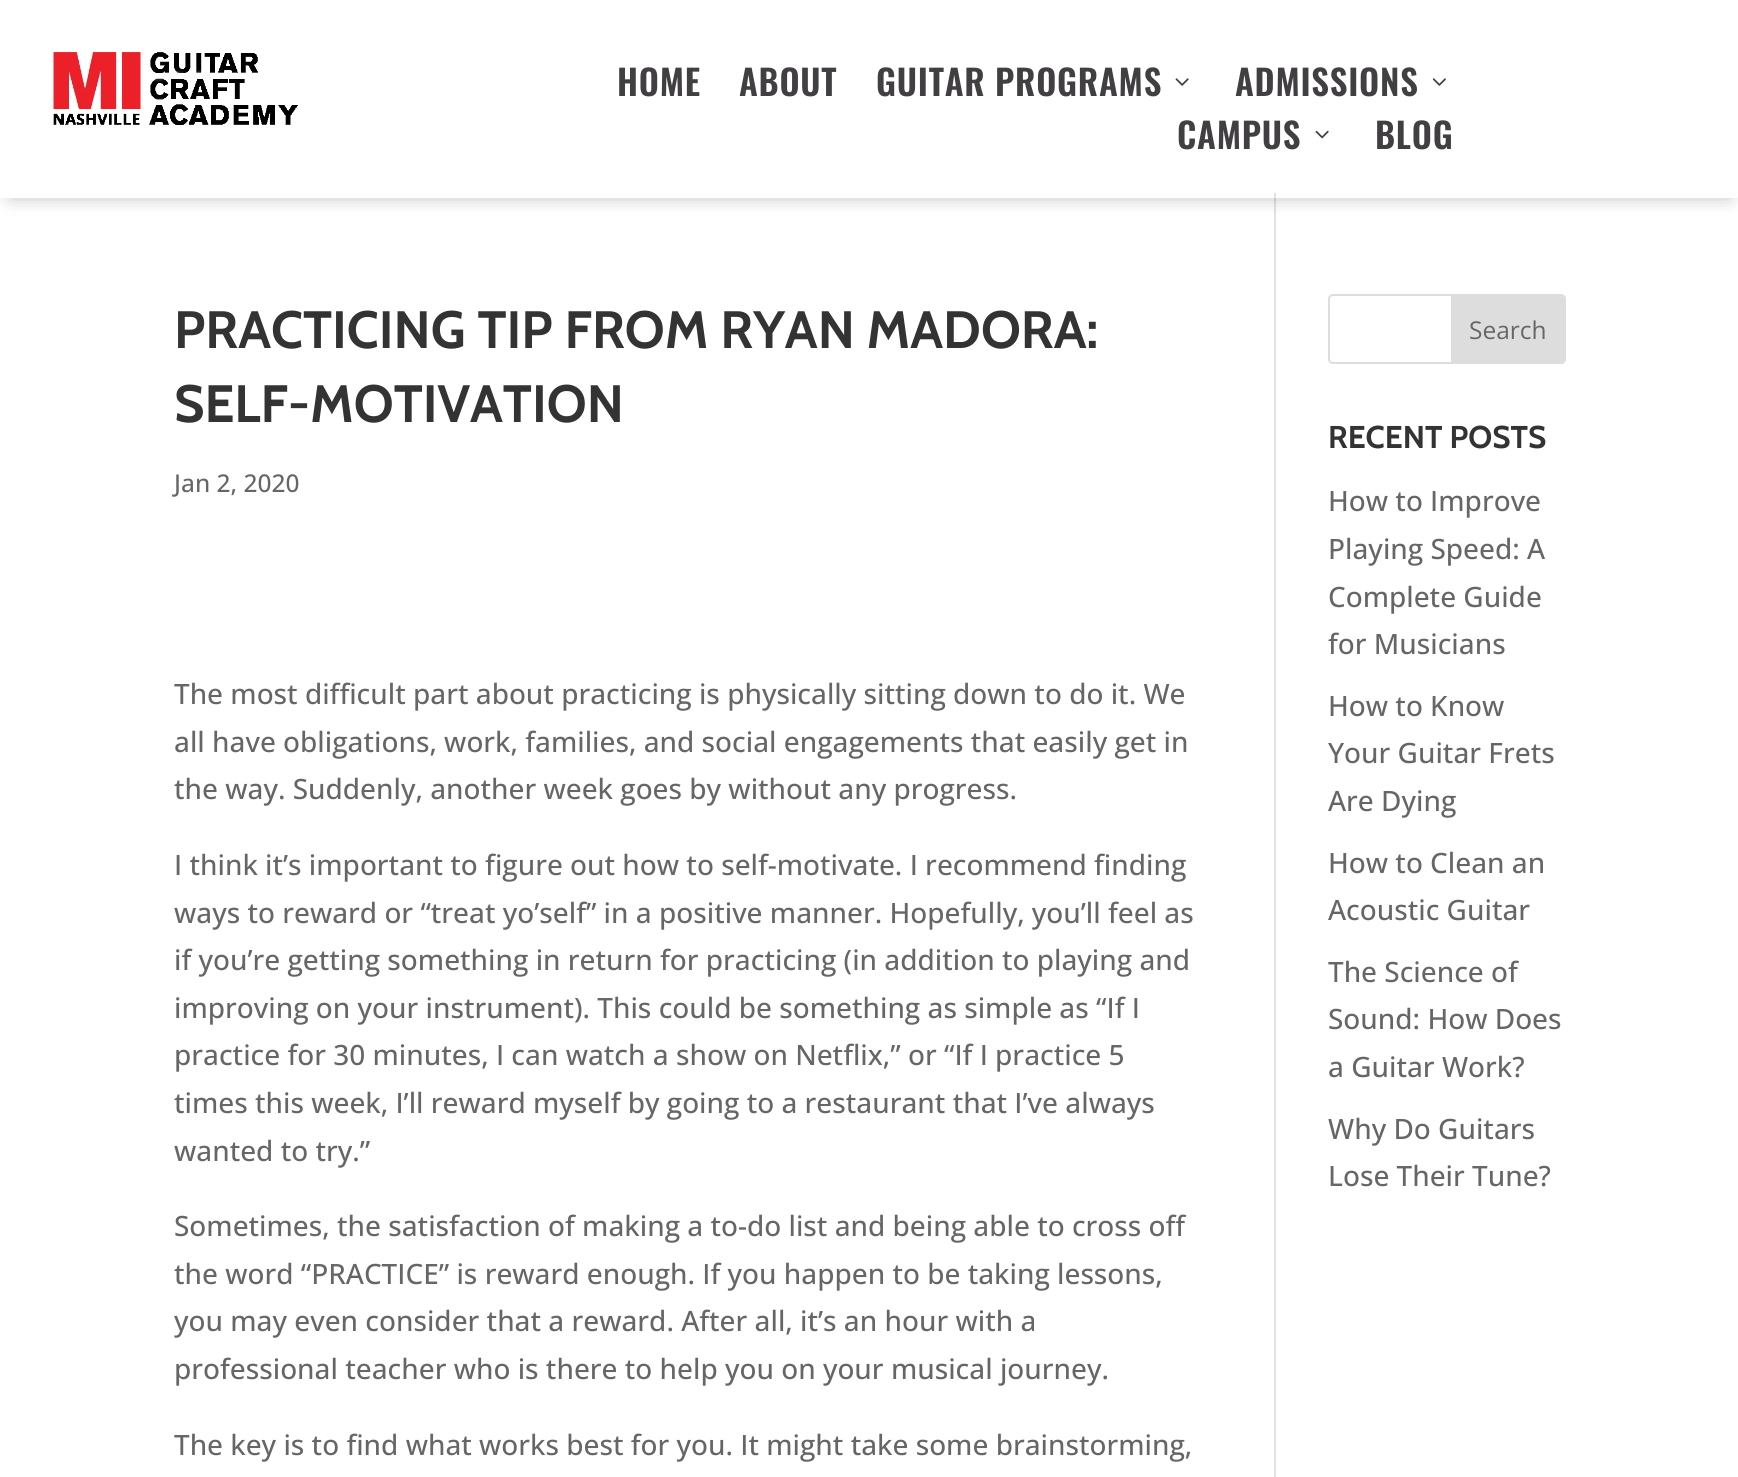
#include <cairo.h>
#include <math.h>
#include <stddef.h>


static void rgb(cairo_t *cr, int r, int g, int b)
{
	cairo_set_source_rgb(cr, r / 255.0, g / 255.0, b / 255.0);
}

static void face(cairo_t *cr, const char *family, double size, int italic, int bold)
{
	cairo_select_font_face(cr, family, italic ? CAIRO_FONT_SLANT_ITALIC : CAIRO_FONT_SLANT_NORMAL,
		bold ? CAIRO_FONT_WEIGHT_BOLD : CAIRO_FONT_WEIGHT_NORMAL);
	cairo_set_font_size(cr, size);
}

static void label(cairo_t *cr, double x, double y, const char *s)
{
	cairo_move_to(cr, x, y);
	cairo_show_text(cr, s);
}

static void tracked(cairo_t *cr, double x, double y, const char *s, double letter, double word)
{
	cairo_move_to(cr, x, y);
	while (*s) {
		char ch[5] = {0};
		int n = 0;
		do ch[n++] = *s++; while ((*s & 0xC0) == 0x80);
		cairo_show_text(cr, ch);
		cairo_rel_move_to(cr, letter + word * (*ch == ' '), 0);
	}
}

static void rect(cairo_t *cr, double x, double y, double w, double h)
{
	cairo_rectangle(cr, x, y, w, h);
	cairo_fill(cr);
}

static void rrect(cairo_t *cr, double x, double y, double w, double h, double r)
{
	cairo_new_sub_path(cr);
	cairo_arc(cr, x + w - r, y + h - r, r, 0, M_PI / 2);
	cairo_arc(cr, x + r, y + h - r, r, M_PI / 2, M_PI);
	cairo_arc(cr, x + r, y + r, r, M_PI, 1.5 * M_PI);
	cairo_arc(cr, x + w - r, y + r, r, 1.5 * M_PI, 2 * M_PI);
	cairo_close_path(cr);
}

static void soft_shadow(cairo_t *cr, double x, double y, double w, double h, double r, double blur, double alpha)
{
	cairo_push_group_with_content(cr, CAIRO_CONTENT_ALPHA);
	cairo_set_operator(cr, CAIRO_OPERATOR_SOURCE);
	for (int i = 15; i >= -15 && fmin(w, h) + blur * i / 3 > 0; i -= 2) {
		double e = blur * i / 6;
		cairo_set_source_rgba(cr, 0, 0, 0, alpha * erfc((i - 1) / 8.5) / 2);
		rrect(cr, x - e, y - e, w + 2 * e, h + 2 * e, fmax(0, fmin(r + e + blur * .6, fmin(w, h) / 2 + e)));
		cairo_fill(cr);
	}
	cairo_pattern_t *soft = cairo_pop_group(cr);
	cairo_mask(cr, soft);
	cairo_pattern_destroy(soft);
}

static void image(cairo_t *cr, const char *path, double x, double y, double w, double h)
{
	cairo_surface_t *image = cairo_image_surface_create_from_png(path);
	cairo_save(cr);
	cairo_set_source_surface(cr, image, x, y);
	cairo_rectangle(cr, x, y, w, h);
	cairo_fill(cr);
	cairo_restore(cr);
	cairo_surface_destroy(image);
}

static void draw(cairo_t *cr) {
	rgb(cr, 255, 255, 255);
	cairo_paint(cr);
	rgb(cr, 226, 226, 226);
	rect(cr, 1274, 193, 2, 1284);
	cairo_save(cr);
	cairo_set_fill_rule(cr, CAIRO_FILL_RULE_EVEN_ODD);
	cairo_new_path(cr);
	cairo_move_to(cr, 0, 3);
	cairo_line_to(cr, 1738, 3);
	cairo_line_to(cr, 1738, 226);
	cairo_line_to(cr, 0, 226);
	cairo_close_path(cr);
	cairo_move_to(cr, 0, 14);
	cairo_line_to(cr, 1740, 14);
	cairo_line_to(cr, 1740, 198);
	cairo_line_to(cr, 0, 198);
	cairo_close_path(cr);
	cairo_clip(cr);
	rgb(cr, 0, 0, 0);
	soft_shadow(cr, 11, 33, 1718, 163, 0, 9.5, 0.3);
	cairo_restore(cr);
	image(cr, "image0.png", 53, 52, 245, 73);
	face(cr, "Oswald SemiBold", 35, 0, 0);
	rgb(cr, 66, 63, 67);
	tracked(cr, 617, 96, "HOME", 0.75, 0);
	tracked(cr, 739, 96, "ABOUT", 0.75, 0);
	tracked(cr, 876, 96, "GUITAR PROGRAMS", 0.75, 0);
	image(cr, "image1.png", 1175, 78, 14, 8);
	tracked(cr, 1235, 96, "ADMISSIONS", 0.75, 0);
	image(cr, "image2.png", 1432, 78, 14, 8);
	tracked(cr, 1177, 149, "CAMPUS", 0.75, 0);
	image(cr, "image3.png", 1315, 130, 14, 9);
	tracked(cr, 1375, 149, "BLOG", 0.75, 0);
	face(cr, "Cabin", 52.5, 0, 1);
	rgb(cr, 51, 51, 51);
	label(cr, 174, 348, "PRACTICING TIP FROM RYAN MADORA:");
	label(cr, 174, 422, "SELF-MOTIVATION");
	face(cr, "Open Sans Medium", 24.5, 0, 0);
	rgb(cr, 102, 102, 102);
	label(cr, 174, 492, "Jan 2, 2020");
	face(cr, "Open Sans Medium", 28, 0, 0);
	label(cr, 174, 704, "The most difficult part about practicing is physically sitting down to do it. We");
	label(cr, 174, 752, "all have obligations, work, families, and social engagements that easily get in");
	label(cr, 174, 799, "the way. Suddenly, another week goes by without any progress.");
	label(cr, 174, 875, "I think it’s important to figure out how to self-motivate. I recommend finding");
	label(cr, 174, 923, "ways to reward or “treat yo’self” in a positive manner. Hopefully, you’ll feel as");
	label(cr, 174, 970, "if you’re getting something in return for practicing (in addition to playing and");
	label(cr, 174, 1018, "improving on your instrument). This could be something as simple as “If I");
	label(cr, 174, 1065, "practice for 30 minutes, I can watch a show on Netflix,” or “If I practice 5");
	label(cr, 174, 1113, "times this week, I’ll reward myself by going to a restaurant that I’ve always");
	label(cr, 174, 1161, "wanted to try.”");
	label(cr, 174, 1236, "Sometimes, the satisfaction of making a to-do list and being able to cross off");
	label(cr, 174, 1284, "the word “PRACTICE” is reward enough. If you happen to be taking lessons,");
	label(cr, 174, 1331, "you may even consider that a reward. After all, it’s an hour with a");
	label(cr, 174, 1379, "professional teacher who is there to help you on your musical journey.");
	label(cr, 174, 1455, "The key is to find what works best for you. It might take some brainstorming,");
	rrect(cr, 1329, 295, 236, 68, 4);
	rgb(cr, 221, 221, 221);
	cairo_stroke(cr);
	cairo_new_path(cr);
	cairo_move_to(cr, 1452, 295);
	cairo_line_to(cr, 1561, 295);
	cairo_curve_to(cr, 1563, 295, 1565, 297, 1565, 299);
	cairo_line_to(cr, 1565, 359);
	cairo_curve_to(cr, 1565, 361, 1563, 363, 1561, 363);
	cairo_line_to(cr, 1452, 363);
	cairo_close_path(cr);
	cairo_fill_preserve(cr);
	cairo_stroke(cr);
	face(cr, "Open Sans", 24.5, 0, 0);
	rgb(cr, 102, 102, 102);
	label(cr, 1469, 339, "Search");
	face(cr, "Cabin", 31.5, 0, 1);
	rgb(cr, 51, 51, 51);
	label(cr, 1328, 448, "RECENT POSTS");
	face(cr, "Open Sans Medium", 28, 0, 0);
	rgb(cr, 102, 102, 102);
	label(cr, 1328, 511, "How to Improve");
	label(cr, 1328, 559, "Playing Speed: A");
	label(cr, 1328, 607, "Complete Guide");
	label(cr, 1328, 654, "for Musicians");
	label(cr, 1328, 716, "How to Know");
	label(cr, 1328, 763, "Your Guitar Frets");
	label(cr, 1328, 811, "Are Dying");
	label(cr, 1328, 873, "How to Clean an");
	label(cr, 1328, 920, "Acoustic Guitar");
	label(cr, 1328, 982, "The Science of");
	label(cr, 1328, 1029, "Sound: How Does");
	label(cr, 1328, 1077, "a Guitar Work?");
	label(cr, 1328, 1139, "Why Do Guitars");
	label(cr, 1328, 1186, "Lose Their Tune?");
}

int main(void) {
	cairo_surface_t *surface = cairo_image_surface_create(CAIRO_FORMAT_RGB24, 1738, 1477);
	cairo_t *cr = cairo_create(surface);
	cairo_font_options_t *options = cairo_font_options_create();
	cairo_font_options_set_hint_metrics(options, CAIRO_HINT_METRICS_OFF);
	cairo_font_options_set_hint_style(options, CAIRO_HINT_STYLE_NONE);
	cairo_set_font_options(cr, options);
	cairo_set_miter_limit(cr, 4);
	draw(cr);
	cairo_surface_write_to_png(surface, "render.png");
	cairo_font_options_destroy(options);
	cairo_destroy(cr);
	cairo_surface_destroy(surface);
	return 0;
}
